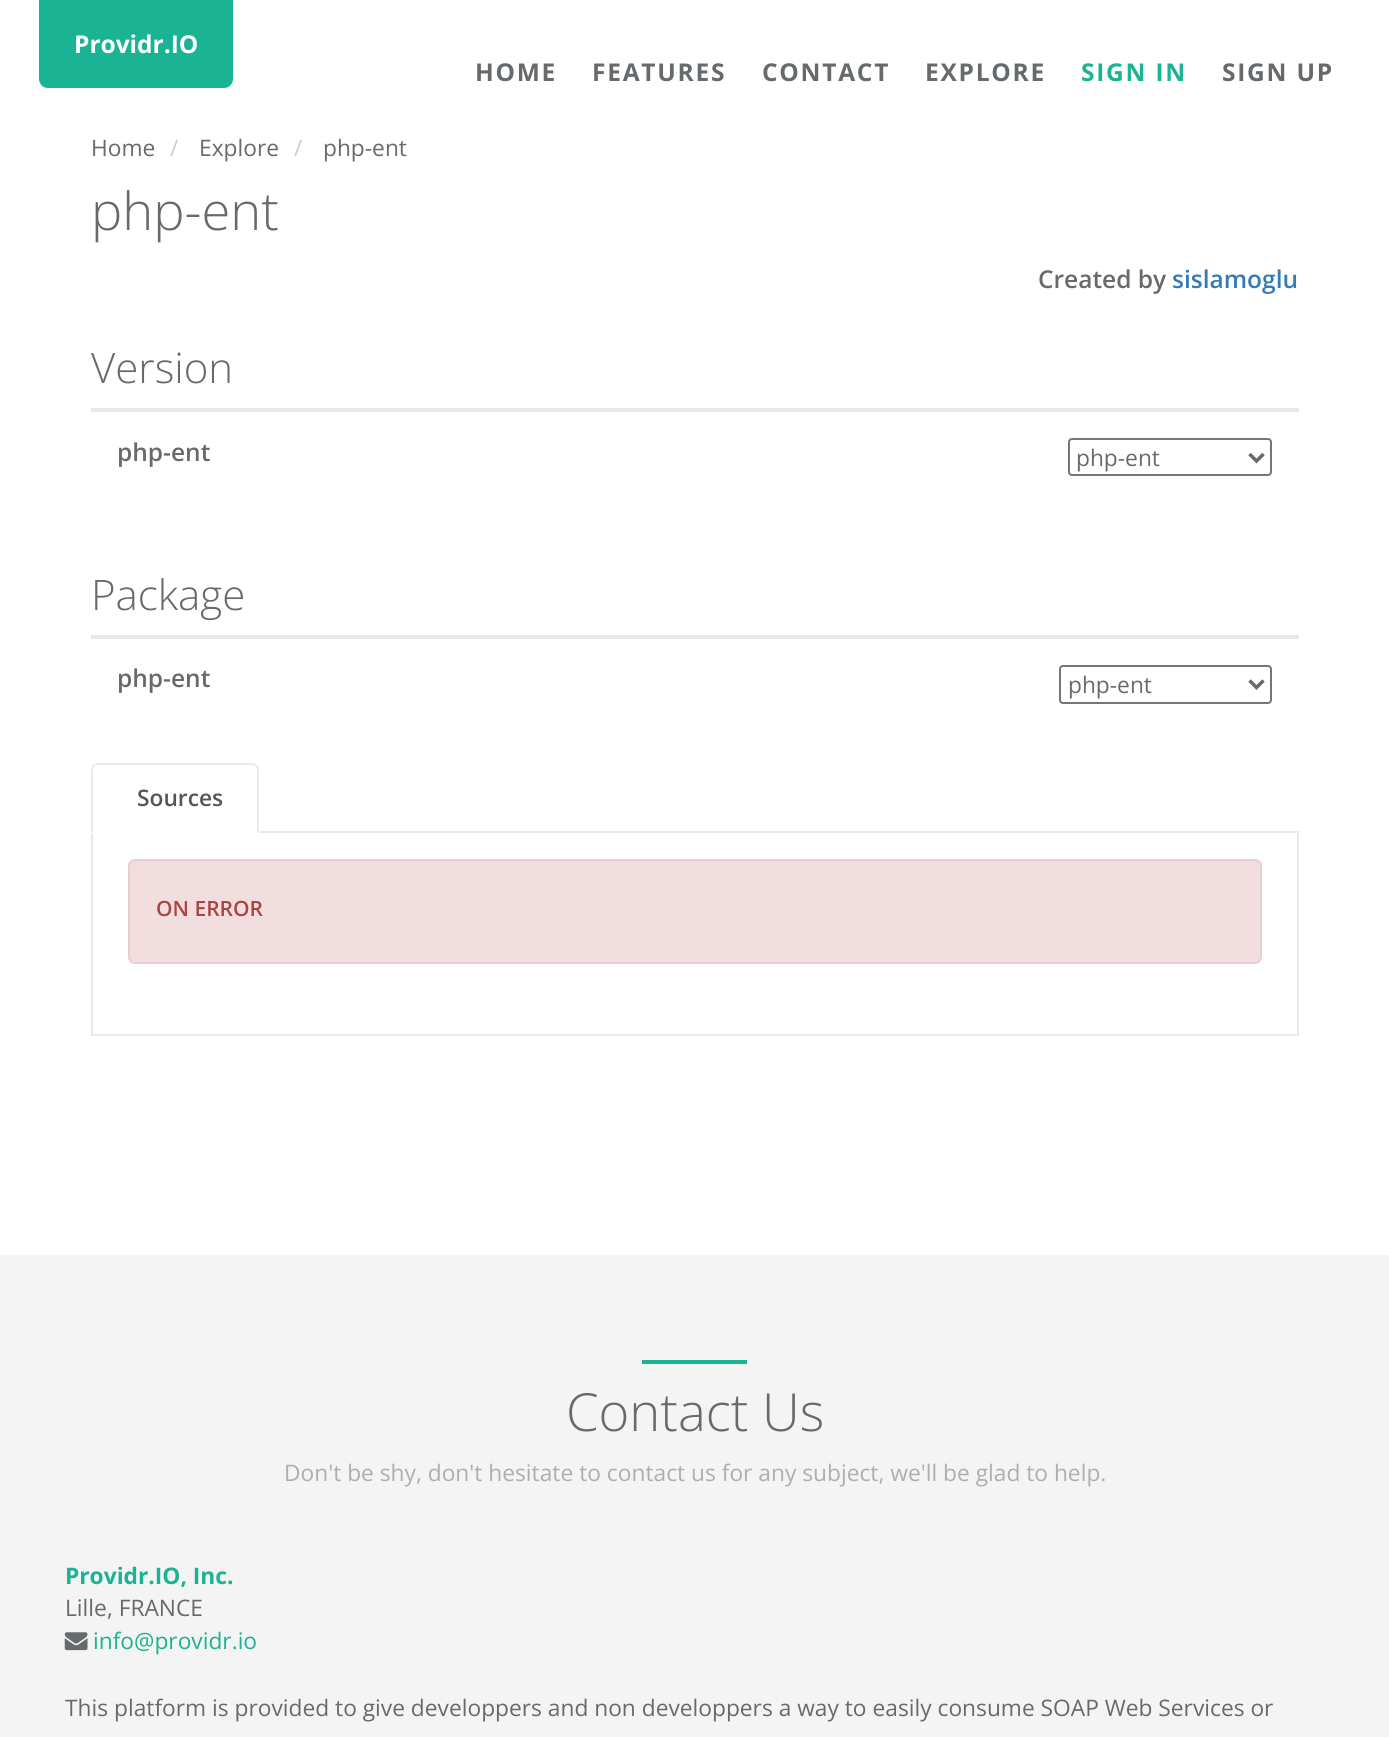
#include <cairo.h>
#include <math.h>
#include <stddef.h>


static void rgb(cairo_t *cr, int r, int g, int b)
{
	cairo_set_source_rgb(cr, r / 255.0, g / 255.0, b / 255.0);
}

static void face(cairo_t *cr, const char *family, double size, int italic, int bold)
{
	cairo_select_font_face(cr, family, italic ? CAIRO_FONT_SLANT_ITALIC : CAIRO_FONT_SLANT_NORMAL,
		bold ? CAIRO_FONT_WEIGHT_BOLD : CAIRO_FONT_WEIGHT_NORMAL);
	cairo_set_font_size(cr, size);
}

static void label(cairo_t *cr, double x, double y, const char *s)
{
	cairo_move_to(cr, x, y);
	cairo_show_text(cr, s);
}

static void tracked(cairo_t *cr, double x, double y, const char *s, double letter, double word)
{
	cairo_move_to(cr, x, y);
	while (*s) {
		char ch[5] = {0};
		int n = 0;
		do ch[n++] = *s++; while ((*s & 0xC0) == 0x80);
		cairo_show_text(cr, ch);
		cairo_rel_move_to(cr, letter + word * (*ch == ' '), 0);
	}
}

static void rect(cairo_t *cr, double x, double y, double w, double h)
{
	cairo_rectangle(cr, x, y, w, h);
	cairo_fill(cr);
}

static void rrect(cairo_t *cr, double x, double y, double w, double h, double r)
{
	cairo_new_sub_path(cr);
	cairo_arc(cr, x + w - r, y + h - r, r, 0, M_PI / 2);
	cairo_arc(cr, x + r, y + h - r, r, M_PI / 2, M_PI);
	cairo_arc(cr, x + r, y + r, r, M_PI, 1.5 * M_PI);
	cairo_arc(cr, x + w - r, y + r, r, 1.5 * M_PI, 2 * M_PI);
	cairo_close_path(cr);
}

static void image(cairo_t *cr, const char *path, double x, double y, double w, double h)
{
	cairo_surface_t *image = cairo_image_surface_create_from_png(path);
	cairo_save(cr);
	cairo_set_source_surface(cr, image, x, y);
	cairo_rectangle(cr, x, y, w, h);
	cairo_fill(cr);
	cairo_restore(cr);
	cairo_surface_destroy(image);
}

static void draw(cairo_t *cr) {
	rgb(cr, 255, 255, 255);
	cairo_paint(cr);
	rgb(cr, 26, 179, 148);
	cairo_new_path(cr);
	cairo_move_to(cr, 39, 0);
	cairo_line_to(cr, 233, 0);
	cairo_line_to(cr, 233, 79);
	cairo_curve_to(cr, 233, 84, 229, 88, 224, 88);
	cairo_line_to(cr, 48, 88);
	cairo_curve_to(cr, 43, 88, 39, 84, 39, 79);
	cairo_close_path(cr);
	cairo_fill(cr);
	face(cr, "Open Sans", 24.5, 0, 1);
	rgb(cr, 255, 255, 255);
	label(cr, 74, 53, "Providr.IO");
	rgb(cr, 103, 106, 108);
	tracked(cr, 475, 81, "HOME", 1.75, 0);
	tracked(cr, 592, 81, "FEATURES", 1.75, 0);
	tracked(cr, 762, 81, "CONTACT", 1.75, 0);
	tracked(cr, 925, 81, "EXPLORE", 1.75, 0);
	rgb(cr, 26, 179, 148);
	tracked(cr, 1081, 81, "SIGN IN", 1.75, 0);
	rgb(cr, 103, 106, 108);
	tracked(cr, 1222, 81, "SIGN UP", 1.75, 0);
	face(cr, "Open Sans", 22.75, 0, 0);
	label(cr, 91, 156, "Home");
	rgb(cr, 204, 204, 204);
	label(cr, 170, 156, "/");
	rgb(cr, 103, 106, 108);
	label(cr, 199, 156, "Explore");
	rgb(cr, 204, 204, 204);
	label(cr, 294, 156, "/");
	rgb(cr, 103, 106, 108);
	label(cr, 323, 156, "php-ent");
	face(cr, "Open Sans Light", 52.5, 0, 0);
	label(cr, 91, 230, "php-ent");
	face(cr, "Open Sans SemiBold", 24.5, 0, 0);
	label(cr, 1038, 288, "Created by");
	rgb(cr, 51, 122, 183);
	label(cr, 1172, 288, "sislamoglu");
	face(cr, "Open Sans Light", 42, 0, 0);
	rgb(cr, 103, 106, 108);
	label(cr, 91, 383, "Version");
	rgb(cr, 231, 234, 236);
	rect(cr, 91, 408, 1208, 4);
	face(cr, "Open Sans SemiBold", 24.5, 0, 0);
	rgb(cr, 103, 106, 108);
	label(cr, 117, 461, "php-ent");
	rrect(cr, 1069, 439, 202, 36, 3);
	rgb(cr, 118, 118, 118);
	cairo_stroke(cr);
	cairo_new_path(cr);
	cairo_move_to(cr, 1249.5, 454);
	cairo_line_to(cr, 1256.5, 461);
	cairo_line_to(cr, 1263.5, 454);
	rgb(cr, 103, 106, 108);
	cairo_set_line_width(cr, 3.5);
	cairo_stroke(cr);
	face(cr, "Open Sans", 22.75, 0, 0);
	label(cr, 1076, 466, "php-ent");
	face(cr, "Open Sans Light", 42, 0, 0);
	label(cr, 91, 610, "Package");
	rgb(cr, 231, 234, 236);
	rect(cr, 91, 635, 1208, 4);
	face(cr, "Open Sans SemiBold", 24.5, 0, 0);
	rgb(cr, 103, 106, 108);
	label(cr, 117, 687, "php-ent");
	rrect(cr, 1060, 666, 211, 37, 3);
	rgb(cr, 118, 118, 118);
	cairo_set_line_width(cr, 2);
	cairo_stroke(cr);
	cairo_new_path(cr);
	cairo_move_to(cr, 1249.5, 680.5);
	cairo_line_to(cr, 1256.5, 687.5);
	cairo_line_to(cr, 1263.5, 680.5);
	rgb(cr, 103, 106, 108);
	cairo_set_line_width(cr, 3.5);
	cairo_stroke(cr);
	face(cr, "Open Sans", 22.75, 0, 0);
	label(cr, 1068, 693, "php-ent");
	rgb(cr, 231, 234, 236);
	rect(cr, 259, 831, 1040, 2);
	cairo_new_path(cr);
	cairo_move_to(cr, 98, 763);
	cairo_curve_to(cr, 96, 763, 94, 764, 93, 765);
	cairo_line_to(cr, 94, 766);
	cairo_curve_to(cr, 95, 766, 96, 765, 98, 765);
	cairo_line_to(cr, 252, 765);
	cairo_curve_to(cr, 254, 765, 255, 766, 256, 766);
	cairo_line_to(cr, 257, 765);
	cairo_curve_to(cr, 256, 764, 254, 763, 252, 763);
	cairo_close_path(cr);
	cairo_fill(cr);
	cairo_new_path(cr);
	cairo_move_to(cr, 259, 833);
	cairo_line_to(cr, 259, 770);
	cairo_curve_to(cr, 259, 768, 258, 766, 257, 765);
	cairo_line_to(cr, 256, 766);
	cairo_curve_to(cr, 256, 767, 257, 768, 257, 770);
	cairo_line_to(cr, 257, 831);
	cairo_close_path(cr);
	cairo_fill(cr);
	cairo_new_path(cr);
	cairo_move_to(cr, 91, 833);
	cairo_line_to(cr, 93, 831);
	cairo_line_to(cr, 93, 770);
	cairo_curve_to(cr, 93, 768, 94, 767, 94, 766);
	cairo_line_to(cr, 93, 765);
	cairo_curve_to(cr, 92, 766, 91, 768, 91, 770);
	cairo_close_path(cr);
	cairo_fill(cr);
	face(cr, "Open Sans SemiBold", 22.75, 0, 0);
	rgb(cr, 85, 85, 85);
	label(cr, 137, 806, "Sources");
	rgb(cr, 231, 234, 236);
	rect(cr, 1297, 833, 2, 203);
	rect(cr, 91, 1034, 1208, 2);
	rect(cr, 91, 833, 2, 203);
	rgb(cr, 242, 222, 222);
	rrect(cr, 129, 860, 1132, 103, 6);
	cairo_fill_preserve(cr);
	rgb(cr, 235, 204, 209);
	cairo_set_line_width(cr, 2);
	cairo_stroke(cr);
	face(cr, "Open Sans SemiBold", 21, 0, 0);
	rgb(cr, 169, 68, 66);
	label(cr, 156, 916, "ON ERROR");
	rgb(cr, 244, 244, 244);
	rect(cr, 0, 1255, 1389, 482);
	rgb(cr, 26, 179, 148);
	rect(cr, 642, 1360, 105, 4);
	face(cr, "Open Sans Light", 52.5, 0, 0);
	rgb(cr, 103, 106, 108);
	label(cr, 566, 1431, "Contact Us");
	face(cr, "Open Sans", 22.75, 0, 0);
	rgb(cr, 174, 174, 174);
	label(cr, 284, 1481, "Don't be shy, don't hesitate to contact us for any subject, we'll be glad to help.");
	face(cr, "Open Sans", 22.75, 0, 1);
	rgb(cr, 26, 179, 148);
	label(cr, 65, 1584, "Providr.IO, Inc.");
	face(cr, "Open Sans", 22.75, 0, 0);
	rgb(cr, 103, 106, 108);
	label(cr, 65, 1616, "Lille, FRANCE");
	image(cr, "image0.png", 64, 1632, 24, 19);
	rgb(cr, 26, 179, 148);
	label(cr, 93, 1649, "info@providr.io");
	rgb(cr, 103, 106, 108);
	label(cr, 65, 1716, "This platform is provided to give developpers and non developpers a way to easily consume SOAP Web Services or");
}

int main(void) {
	cairo_surface_t *surface = cairo_image_surface_create(CAIRO_FORMAT_RGB24, 1389, 1737);
	cairo_t *cr = cairo_create(surface);
	cairo_font_options_t *options = cairo_font_options_create();
	cairo_font_options_set_hint_metrics(options, CAIRO_HINT_METRICS_OFF);
	cairo_font_options_set_hint_style(options, CAIRO_HINT_STYLE_NONE);
	cairo_set_font_options(cr, options);
	cairo_set_miter_limit(cr, 4);
	draw(cr);
	cairo_surface_write_to_png(surface, "render.png");
	cairo_font_options_destroy(options);
	cairo_destroy(cr);
	cairo_surface_destroy(surface);
	return 0;
}
